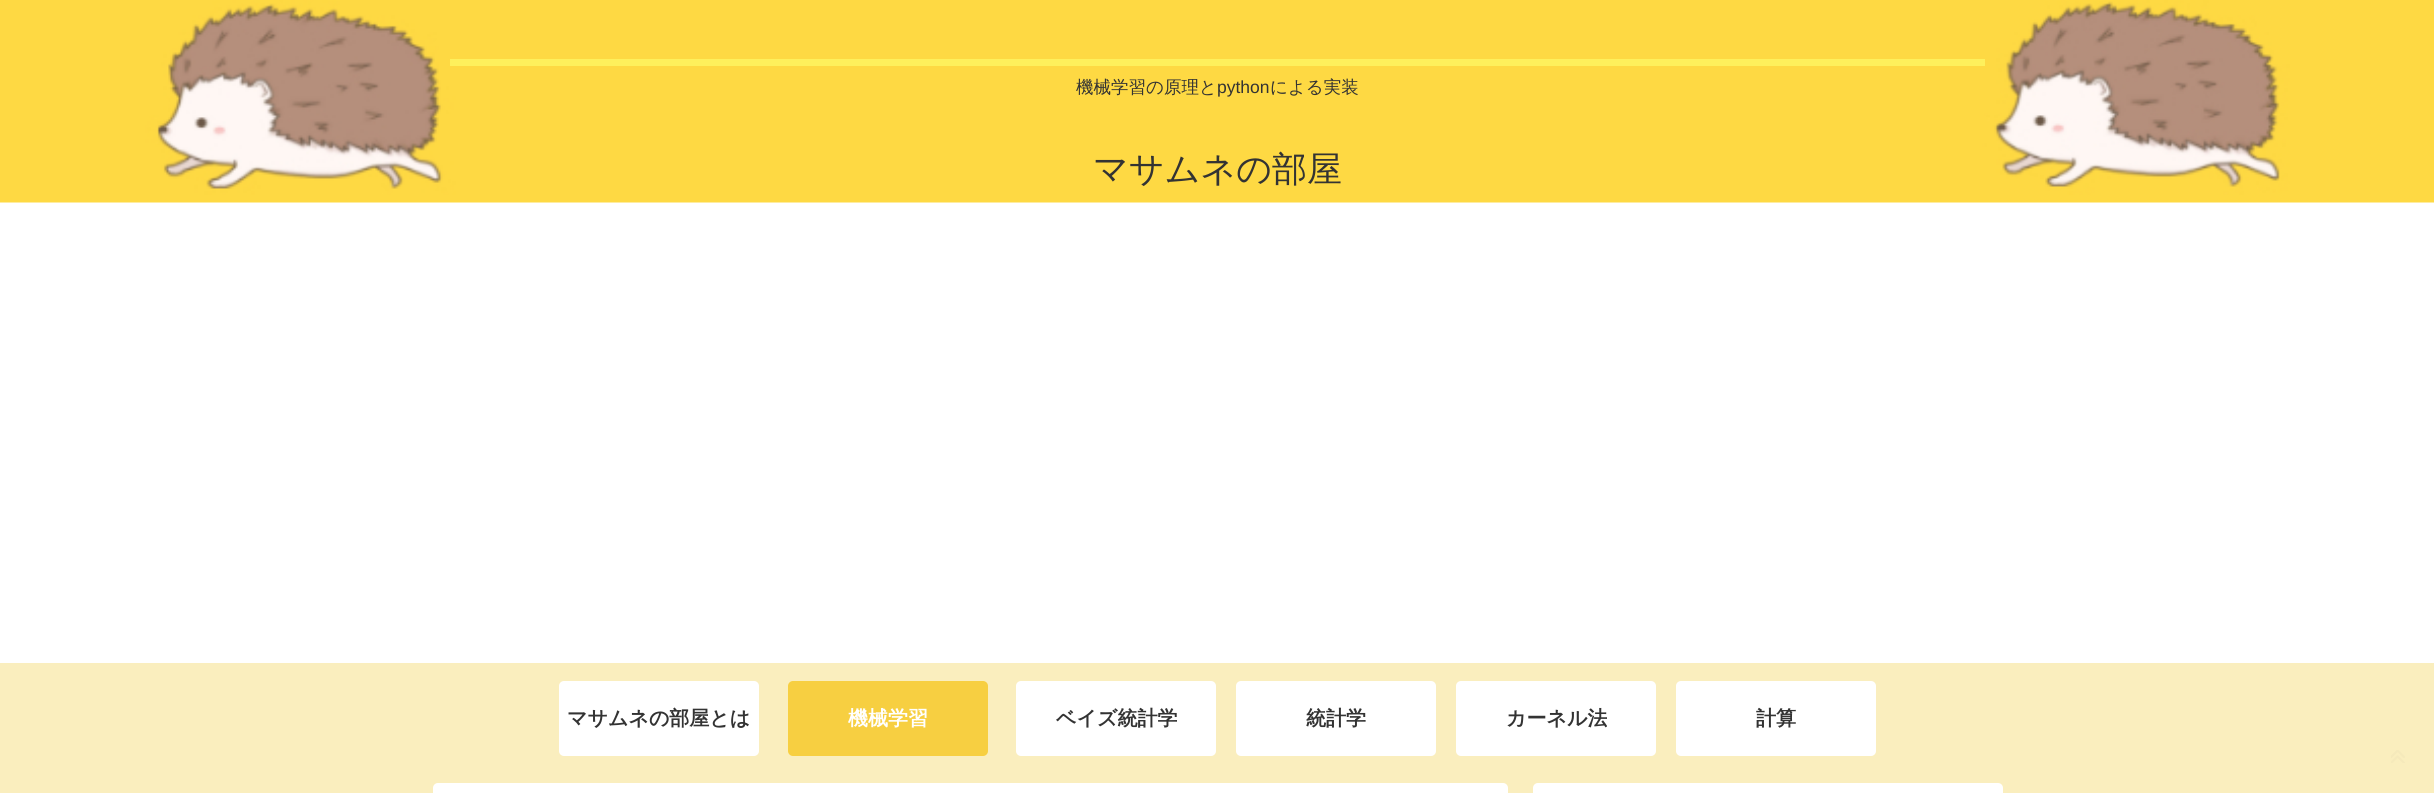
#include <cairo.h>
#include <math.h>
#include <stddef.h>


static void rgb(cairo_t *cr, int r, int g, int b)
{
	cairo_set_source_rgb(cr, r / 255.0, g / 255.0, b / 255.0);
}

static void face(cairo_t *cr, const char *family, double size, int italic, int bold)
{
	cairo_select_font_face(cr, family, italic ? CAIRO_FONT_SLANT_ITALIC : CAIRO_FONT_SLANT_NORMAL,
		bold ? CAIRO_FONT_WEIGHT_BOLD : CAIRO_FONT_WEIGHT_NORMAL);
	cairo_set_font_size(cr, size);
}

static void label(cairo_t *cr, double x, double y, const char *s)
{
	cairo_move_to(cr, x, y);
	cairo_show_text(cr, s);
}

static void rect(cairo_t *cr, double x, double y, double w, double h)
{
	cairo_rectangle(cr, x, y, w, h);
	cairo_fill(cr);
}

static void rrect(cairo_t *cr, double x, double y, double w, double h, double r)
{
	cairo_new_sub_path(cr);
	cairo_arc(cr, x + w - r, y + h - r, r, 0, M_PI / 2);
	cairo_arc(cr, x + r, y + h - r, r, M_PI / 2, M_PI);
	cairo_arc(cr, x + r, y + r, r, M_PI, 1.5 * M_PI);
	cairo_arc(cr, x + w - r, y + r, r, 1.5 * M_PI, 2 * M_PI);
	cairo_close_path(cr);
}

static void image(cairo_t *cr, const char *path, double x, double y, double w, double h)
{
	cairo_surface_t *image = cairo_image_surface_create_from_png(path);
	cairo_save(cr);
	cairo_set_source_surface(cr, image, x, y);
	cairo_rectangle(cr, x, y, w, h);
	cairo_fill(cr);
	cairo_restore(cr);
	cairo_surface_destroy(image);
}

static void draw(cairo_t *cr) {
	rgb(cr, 250, 238, 190);
	cairo_paint(cr);
	rgb(cr, 255, 255, 255);
	rect(cr, 0, 202, 2434, 461);
	image(cr, "image0.png", 0, 0, 2434, 203);
	rgb(cr, 254, 240, 92);
	rect(cr, 450, 59, 1535, 7);
	face(cr, "WenQuanYi Zen Hei Medium", 17.5, 0, 0);
	rgb(cr, 51, 51, 51);
	label(cr, 1076, 93, "機械学習の原理と");
	face(cr, "Liberation Sans", 17.5, 0, 0);
	label(cr, 1217, 93, "python");
	face(cr, "WenQuanYi Zen Hei Medium", 17.5, 0, 0);
	label(cr, 1270, 93, "による実装");
	face(cr, "WenQuanYi Zen Hei Medium", 35, 0, 0);
	label(cr, 1093, 181, "マサムネの部屋");
	rgb(cr, 255, 255, 255);
	rrect(cr, 559, 681, 200, 75, 5);
	cairo_fill(cr);
	face(cr, "WenQuanYi Zen Hei", 20, 0, 1);
	rgb(cr, 51, 51, 51);
	label(cr, 567, 725, "マサムネの部屋とは");
	rgb(cr, 247, 207, 65);
	rrect(cr, 788, 681, 200, 75, 5);
	cairo_fill(cr);
	rgb(cr, 255, 255, 255);
	label(cr, 848, 725, "機械学習");
	rrect(cr, 1016, 681, 200, 75, 5);
	cairo_fill(cr);
	rgb(cr, 51, 51, 51);
	label(cr, 1056, 725, "ベイズ統計学");
	rgb(cr, 255, 255, 255);
	rrect(cr, 1236, 681, 200, 75, 5);
	cairo_fill(cr);
	rgb(cr, 51, 51, 51);
	label(cr, 1306, 725, "統計学");
	rgb(cr, 255, 255, 255);
	rrect(cr, 1456, 681, 200, 75, 5);
	cairo_fill(cr);
	rgb(cr, 51, 51, 51);
	label(cr, 1506, 725, "カーネル法");
	rgb(cr, 255, 255, 255);
	rrect(cr, 1676, 681, 200, 75, 5);
	cairo_fill(cr);
	rgb(cr, 51, 51, 51);
	label(cr, 1756, 725, "計算");
	image(cr, "image1.png", 2391, 750, 14, 13);
	rgb(cr, 255, 255, 255);
	rrect(cr, 433, 783, 1075, 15, 5);
	cairo_fill(cr);
	rrect(cr, 1533, 783, 470, 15, 5);
	cairo_fill(cr);
}

int main(void) {
	cairo_surface_t *surface = cairo_image_surface_create(CAIRO_FORMAT_RGB24, 2434, 793);
	cairo_t *cr = cairo_create(surface);
	cairo_font_options_t *options = cairo_font_options_create();
	cairo_font_options_set_hint_metrics(options, CAIRO_HINT_METRICS_OFF);
	cairo_font_options_set_hint_style(options, CAIRO_HINT_STYLE_NONE);
	cairo_set_font_options(cr, options);
	cairo_set_miter_limit(cr, 4);
	draw(cr);
	cairo_surface_write_to_png(surface, "render.png");
	cairo_font_options_destroy(options);
	cairo_destroy(cr);
	cairo_surface_destroy(surface);
	return 0;
}
